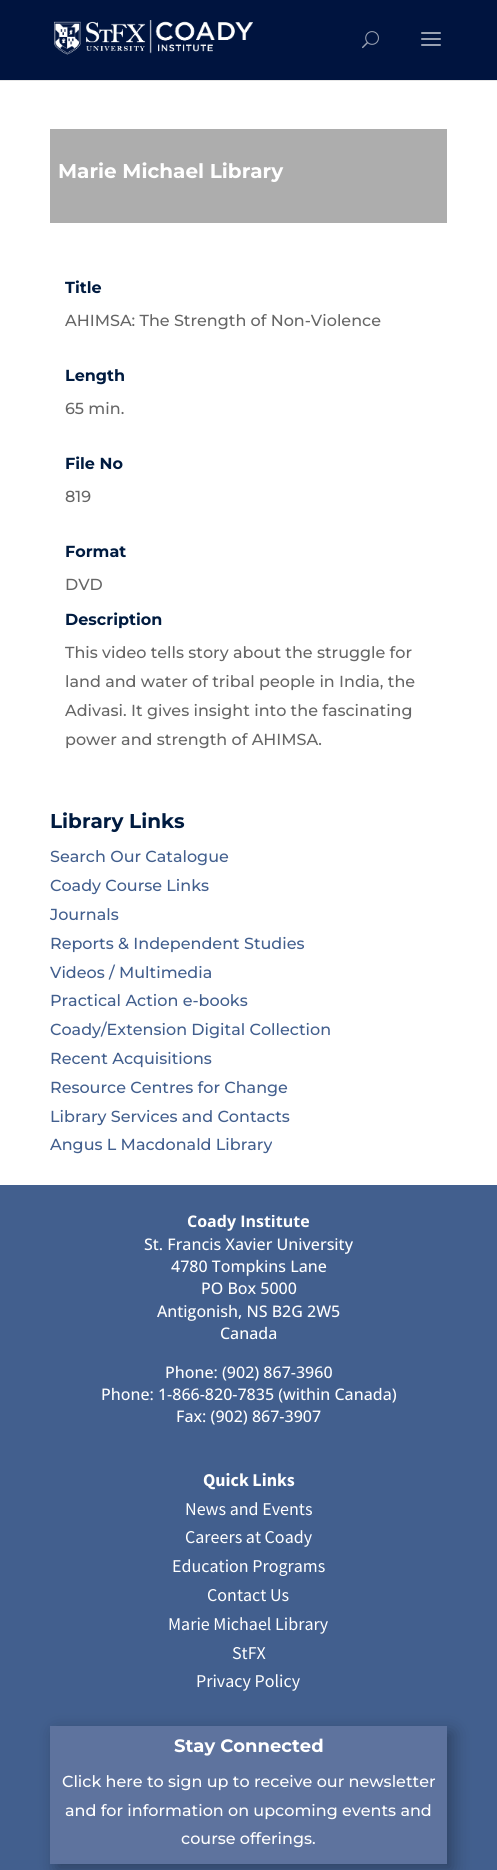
#include <cairo.h>
#include <math.h>
#include <stddef.h>


static void rgb(cairo_t *cr, int r, int g, int b)
{
	cairo_set_source_rgb(cr, r / 255.0, g / 255.0, b / 255.0);
}

static void face(cairo_t *cr, const char *family, double size, int italic, int bold)
{
	cairo_select_font_face(cr, family, italic ? CAIRO_FONT_SLANT_ITALIC : CAIRO_FONT_SLANT_NORMAL,
		bold ? CAIRO_FONT_WEIGHT_BOLD : CAIRO_FONT_WEIGHT_NORMAL);
	cairo_set_font_size(cr, size);
}

static void label(cairo_t *cr, double x, double y, const char *s)
{
	cairo_move_to(cr, x, y);
	cairo_show_text(cr, s);
}

static void rect(cairo_t *cr, double x, double y, double w, double h)
{
	cairo_rectangle(cr, x, y, w, h);
	cairo_fill(cr);
}

static void rrect(cairo_t *cr, double x, double y, double w, double h, double r)
{
	cairo_new_sub_path(cr);
	cairo_arc(cr, x + w - r, y + h - r, r, 0, M_PI / 2);
	cairo_arc(cr, x + r, y + h - r, r, M_PI / 2, M_PI);
	cairo_arc(cr, x + r, y + r, r, M_PI, 1.5 * M_PI);
	cairo_arc(cr, x + w - r, y + r, r, 1.5 * M_PI, 2 * M_PI);
	cairo_close_path(cr);
}

static void soft_shadow(cairo_t *cr, double x, double y, double w, double h, double r, double blur, double alpha)
{
	cairo_push_group_with_content(cr, CAIRO_CONTENT_ALPHA);
	cairo_set_operator(cr, CAIRO_OPERATOR_SOURCE);
	for (int i = 15; i >= -15 && fmin(w, h) + blur * i / 3 > 0; i -= 2) {
		double e = blur * i / 6;
		cairo_set_source_rgba(cr, 0, 0, 0, alpha * erfc((i - 1) / 8.5) / 2);
		rrect(cr, x - e, y - e, w + 2 * e, h + 2 * e, fmax(0, fmin(r + e + blur * .6, fmin(w, h) / 2 + e)));
		cairo_fill(cr);
	}
	cairo_pattern_t *soft = cairo_pop_group(cr);
	cairo_mask(cr, soft);
	cairo_pattern_destroy(soft);
}

static void image(cairo_t *cr, const char *path, double x, double y, double w, double h)
{
	cairo_surface_t *image = cairo_image_surface_create_from_png(path);
	cairo_save(cr);
	cairo_set_source_surface(cr, image, x, y);
	cairo_rectangle(cr, x, y, w, h);
	cairo_fill(cr);
	cairo_restore(cr);
	cairo_surface_destroy(image);
}

static void draw(cairo_t *cr) {
	rgb(cr, 255, 255, 255);
	cairo_paint(cr);
	rgb(cr, 230, 230, 230);
	rect(cr, 0, 80, 497, 1);
	rgb(cr, 0, 20, 63);
	rect(cr, 0, 0, 497, 80);
	image(cr, "image0.png", 54, 20, 199, 35);
	image(cr, "image1.png", 362, 31, 17, 18);
	image(cr, "image2.png", 421, 32, 20, 14);
	rgb(cr, 173, 173, 173);
	rect(cr, 50, 129, 397, 94);
	face(cr, "Montserrat Thin", 20, 0, 0);
	rgb(cr, 255, 255, 255);
	label(cr, 58, 178, "Marie Michael Library");
	face(cr, "Montserrat Thin", 16, 0, 0);
	rgb(cr, 0, 27, 64);
	label(cr, 65, 293, "Title");
	face(cr, "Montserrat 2 Thin", 16, 0, 0);
	rgb(cr, 102, 102, 102);
	label(cr, 65, 326, "AHIMSA: The Strength of Non-Violence");
	face(cr, "Montserrat Thin", 16, 0, 0);
	rgb(cr, 0, 27, 64);
	label(cr, 65, 381, "Length");
	face(cr, "Montserrat 2 Thin", 16, 0, 0);
	rgb(cr, 102, 102, 102);
	label(cr, 65, 414, "65 min.");
	face(cr, "Montserrat Thin", 16, 0, 0);
	rgb(cr, 0, 27, 64);
	label(cr, 65, 469, "File No");
	face(cr, "Montserrat 2 Thin", 16, 0, 0);
	rgb(cr, 102, 102, 102);
	label(cr, 65, 502, "819");
	face(cr, "Montserrat Thin", 16, 0, 0);
	rgb(cr, 0, 27, 64);
	label(cr, 65, 557, "Format");
	face(cr, "Montserrat 2 Thin", 16, 0, 0);
	rgb(cr, 102, 102, 102);
	label(cr, 65, 590, "DVD");
	face(cr, "Montserrat Thin", 16, 0, 0);
	rgb(cr, 0, 27, 64);
	label(cr, 65, 625, "Description");
	face(cr, "Montserrat 2 Thin", 16, 0, 0);
	rgb(cr, 102, 102, 102);
	label(cr, 65, 658, "This video tells story about the struggle for");
	label(cr, 65, 687, "land and water of tribal people in India, the");
	label(cr, 65, 716, "Adivasi. It gives insight into the fascinating");
	label(cr, 65, 745, "power and strength of AHIMSA.");
	face(cr, "Montserrat Thin", 20, 0, 0);
	rgb(cr, 0, 27, 64);
	label(cr, 50, 828, "Library Links");
	face(cr, "Montserrat 2 Thin", 16, 0, 0);
	rgb(cr, 66, 95, 142);
	label(cr, 50, 862, "Search Our Catalogue");
	label(cr, 50, 891, "Coady Course Links");
	label(cr, 50, 920, "Journals");
	label(cr, 50, 949, "Reports & Independent Studies");
	label(cr, 50, 978, "Videos / Multimedia");
	label(cr, 50, 1006, "Practical Action e-books");
	label(cr, 50, 1035, "Coady/Extension Digital Collection");
	label(cr, 50, 1064, "Recent Acquisitions");
	label(cr, 50, 1093, "Resource Centres for Change");
	label(cr, 50, 1122, "Library Services and Contacts");
	label(cr, 50, 1150, "Angus L Macdonald Library");
	rect(cr, 0, 1185, 497, 685);
	face(cr, "Open Sans", 16, 0, 1);
	rgb(cr, 255, 255, 255);
	label(cr, 187, 1227, "Coady Institute");
	face(cr, "Open Sans Medium", 16, 0, 0);
	label(cr, 144, 1250, "St. Francis Xavier University");
	label(cr, 171, 1272, "4780 Tompkins Lane");
	label(cr, 201, 1294, "PO Box 5000");
	label(cr, 157, 1317, "Antigonish, NS B2G 2W5");
	label(cr, 220, 1339, "Canada");
	label(cr, 165, 1378, "Phone: (902) 867-3960");
	label(cr, 101, 1400, "Phone: 1-866-820-7835 (within Canada)");
	label(cr, 176, 1422, "Fax: (902) 867-3907");
	face(cr, "Source Sans Pro", 18, 0, 1);
	label(cr, 203, 1486, "Quick Links");
	face(cr, "Source Sans Pro", 18, 0, 0);
	label(cr, 185, 1515, "News and Events");
	label(cr, 185, 1543, "Careers at Coady");
	label(cr, 172, 1572, "Education Programs");
	label(cr, 207, 1601, "Contact Us");
	label(cr, 168, 1630, "Marie Michael Library");
	label(cr, 232, 1659, "StFX");
	label(cr, 196, 1687, "Privacy Policy");
	rgb(cr, 0, 0, 0);
	soft_shadow(cr, 56, 1732, 397, 138, 0, 9, 0.3);
	rgb(cr, 94, 115, 158);
	rect(cr, 50, 1726, 397, 138);
	face(cr, "Montserrat Thin", 18, 0, 0);
	rgb(cr, 255, 255, 255);
	label(cr, 174, 1752, "Stay Connected");
	face(cr, "Montserrat 2 Thin", 16, 0, 0);
	label(cr, 62, 1787, "Click here to sign up to receive our newsletter");
	label(cr, 65, 1816, "and for information on upcoming events and");
	label(cr, 181, 1844, "course offerings.");
}

int main(void) {
	cairo_surface_t *surface = cairo_image_surface_create(CAIRO_FORMAT_RGB24, 497, 1870);
	cairo_t *cr = cairo_create(surface);
	cairo_font_options_t *options = cairo_font_options_create();
	cairo_font_options_set_hint_metrics(options, CAIRO_HINT_METRICS_OFF);
	cairo_font_options_set_hint_style(options, CAIRO_HINT_STYLE_NONE);
	cairo_set_font_options(cr, options);
	cairo_set_miter_limit(cr, 4);
	draw(cr);
	cairo_surface_write_to_png(surface, "render.png");
	cairo_font_options_destroy(options);
	cairo_destroy(cr);
	cairo_surface_destroy(surface);
	return 0;
}
